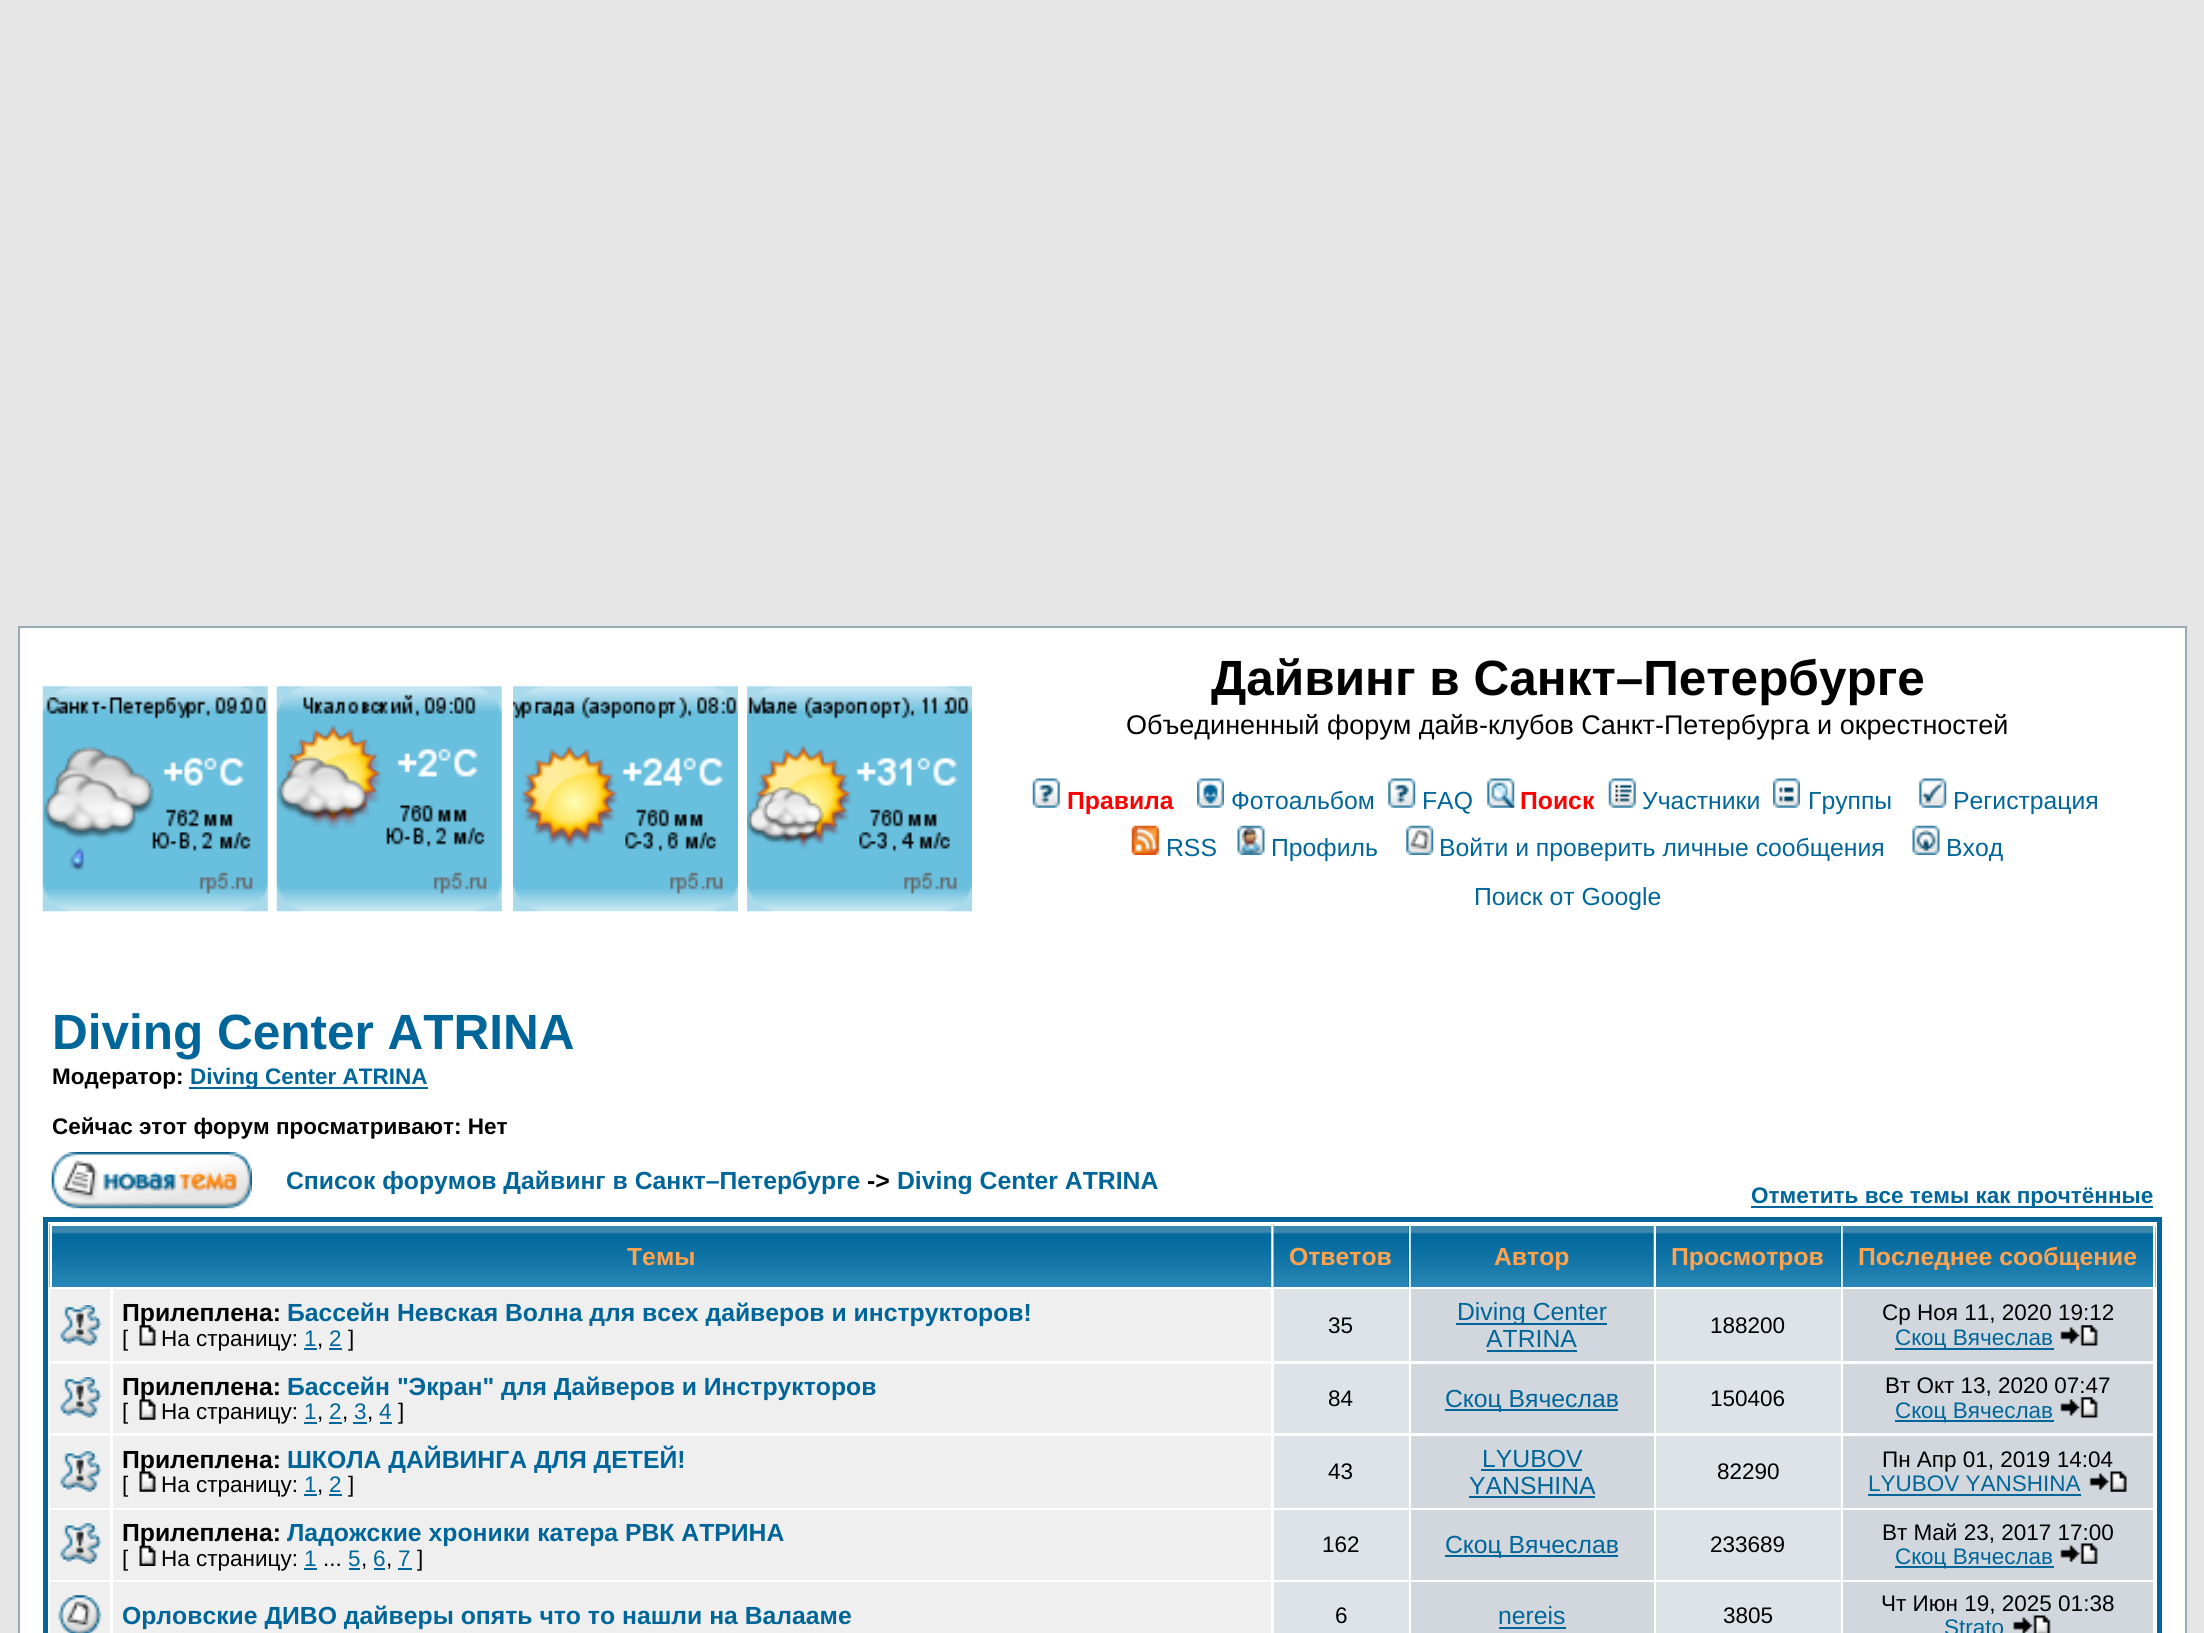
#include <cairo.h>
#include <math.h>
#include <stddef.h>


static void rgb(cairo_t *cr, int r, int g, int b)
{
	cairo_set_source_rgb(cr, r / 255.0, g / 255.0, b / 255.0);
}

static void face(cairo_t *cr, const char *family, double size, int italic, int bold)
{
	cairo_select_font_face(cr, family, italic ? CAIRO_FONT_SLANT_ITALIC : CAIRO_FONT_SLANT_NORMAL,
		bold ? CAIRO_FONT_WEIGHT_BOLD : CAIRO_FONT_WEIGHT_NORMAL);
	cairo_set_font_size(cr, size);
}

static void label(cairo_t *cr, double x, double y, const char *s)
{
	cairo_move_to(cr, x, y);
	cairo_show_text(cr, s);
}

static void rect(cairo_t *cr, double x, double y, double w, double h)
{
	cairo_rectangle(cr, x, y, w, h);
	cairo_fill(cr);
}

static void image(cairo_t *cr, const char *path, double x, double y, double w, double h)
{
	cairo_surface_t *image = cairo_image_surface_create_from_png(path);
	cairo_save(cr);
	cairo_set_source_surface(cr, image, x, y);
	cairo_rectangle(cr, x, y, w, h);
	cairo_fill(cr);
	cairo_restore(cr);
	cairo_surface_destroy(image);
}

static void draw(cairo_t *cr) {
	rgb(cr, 229, 229, 229);
	cairo_paint(cr);
	rgb(cr, 255, 255, 255);
	cairo_rectangle(cr, 19, 627, 2167, 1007);
	cairo_fill_preserve(cr);
	rgb(cr, 152, 170, 177);
	cairo_stroke(cr);
	image(cr, "image0.png", 42, 686, 226, 226);
	image(cr, "image1.png", 276, 686, 226, 226);
	image(cr, "image2.png", 513, 686, 225, 226);
	image(cr, "image3.png", 747, 686, 225, 226);
	face(cr, "Liberation Sans", 49.5, 0, 1);
	rgb(cr, 0, 0, 0);
	label(cr, 1211, 695, "Дайвинг в Санкт–Петербурге");
	face(cr, "Liberation Sans", 27, 0, 0);
	label(cr, 1126, 734, "Объединенный форум дайв-клубов Санкт-Петербурга и окрестностей");
	image(cr, "image4.png", 1032, 778, 28, 30);
	face(cr, "Liberation Sans", 24.75, 0, 1);
	rgb(cr, 255, 0, 0);
	label(cr, 1067, 809, "Правила");
	image(cr, "image5.png", 1197, 778, 27, 30);
	face(cr, "Liberation Sans", 24.75, 0, 0);
	rgb(cr, 0, 102, 153);
	label(cr, 1231, 809, "Фотоальбом");
	image(cr, "image6.png", 1388, 778, 28, 30);
	label(cr, 1422, 809, "FAQ");
	image(cr, "image7.png", 1487, 778, 28, 30);
	face(cr, "Liberation Sans", 24.75, 0, 1);
	rgb(cr, 255, 0, 0);
	label(cr, 1520, 809, "Поиск");
	image(cr, "image8.png", 1608, 778, 28, 30);
	face(cr, "Liberation Sans", 24.75, 0, 0);
	rgb(cr, 0, 102, 153);
	label(cr, 1642, 809, "Участники");
	image(cr, "image9.png", 1773, 778, 27, 30);
	label(cr, 1808, 809, "Группы");
	image(cr, "image10.png", 1919, 778, 28, 30);
	label(cr, 1953, 809, "Регистрация");
	image(cr, "image11.png", 1131, 825, 28, 30);
	label(cr, 1166, 856, "RSS");
	image(cr, "image12.png", 1237, 825, 28, 30);
	label(cr, 1271, 856, "Профиль");
	image(cr, "image13.png", 1406, 825, 28, 30);
	label(cr, 1439, 856, "Войти и проверить личные сообщения");
	image(cr, "image14.png", 1912, 825, 28, 30);
	label(cr, 1946, 856, "Вход");
	label(cr, 1474, 905, "Поиск от Google");
	face(cr, "Liberation Sans", 49.5, 0, 1);
	label(cr, 52, 1049, "Diving Center ATRINA");
	face(cr, "Liberation Sans", 22.5, 0, 1);
	rgb(cr, 0, 0, 0);
	label(cr, 52, 1084, "Модератор:");
	rgb(cr, 0, 102, 153);
	rect(cr, 189, 1087, 239, 2);
	label(cr, 190, 1084, "Diving Center ATRINA");
	rgb(cr, 0, 0, 0);
	label(cr, 52, 1134, "Сейчас этот форум просматривают: Нет");
	image(cr, "image15.png", 51, 1152, 201, 57);
	face(cr, "Liberation Sans", 24.75, 0, 1);
	rgb(cr, 0, 102, 153);
	label(cr, 286, 1189, "Список форумов Дайвинг в Санкт–Петербурге");
	rgb(cr, 0, 0, 0);
	label(cr, 867, 1189, "->");
	rgb(cr, 0, 102, 153);
	label(cr, 897, 1189, "Diving Center ATRINA");
	rect(cr, 1751, 1206, 402, 2);
	face(cr, "Liberation Sans", 22.5, 0, 1);
	label(cr, 1751, 1203, "Отметить все темы как прочтённые");
	cairo_rectangle(cr, 45.5, 1219.5, 2114, 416);
	cairo_set_line_width(cr, 5);
	cairo_stroke(cr);
	image(cr, "image16.png", 49, 1224, 1223, 63);
	rgb(cr, 255, 255, 255);
	rect(cr, 50, 1224, 1221, 2);
	rect(cr, 50, 1224, 2, 63);
	face(cr, "Liberation Sans", 24.75, 0, 1);
	rgb(cr, 255, 163, 79);
	label(cr, 627, 1265, "Темы");
	rgb(cr, 0, 102, 153);
	rect(cr, 1408, 1226, 1, 61);
	image(cr, "image17.png", 1273, 1224, 136, 63);
	rgb(cr, 255, 255, 255);
	rect(cr, 1274, 1224, 135, 2);
	rgb(cr, 255, 163, 79);
	label(cr, 1289, 1265, "Ответов");
	image(cr, "image18.png", 1410, 1224, 244, 63);
	rgb(cr, 255, 255, 255);
	rect(cr, 1411, 1224, 243, 2);
	rgb(cr, 255, 163, 79);
	label(cr, 1494, 1265, "Автор");
	rgb(cr, 0, 102, 153);
	rect(cr, 1840, 1226, 1, 61);
	image(cr, "image19.png", 1656, 1226, 185, 61);
	rgb(cr, 255, 163, 79);
	label(cr, 1671, 1265, "Просмотров");
	image(cr, "image20.png", 1842, 1224, 314, 63);
	rgb(cr, 255, 255, 255);
	rect(cr, 1843, 1224, 313, 2);
	rect(cr, 2153, 1224, 2, 63);
	rgb(cr, 255, 163, 79);
	label(cr, 1858, 1265, "Последнее сообщение");
	rgb(cr, 239, 239, 239);
	rect(cr, 50, 1289, 60, 72);
	image(cr, "image21.png", 60, 1305, 42, 41);
	rect(cr, 113, 1289, 1158, 72);
	rgb(cr, 0, 0, 0);
	label(cr, 122, 1321, "Прилеплена:");
	rgb(cr, 0, 102, 153);
	label(cr, 287, 1321, "Бассейн Невская Волна для всех дайверов и инструкторов!");
	face(cr, "Liberation Sans", 22.5, 0, 0);
	rgb(cr, 0, 0, 0);
	label(cr, 122, 1346, "[");
	image(cr, "image22.png", 139, 1325, 17, 21);
	label(cr, 161, 1346, "На страницу:");
	rgb(cr, 0, 102, 153);
	label(cr, 304, 1346, "1");
	rgb(cr, 0, 0, 0);
	label(cr, 317, 1346, ",");
	rgb(cr, 0, 102, 153);
	rect(cr, 304, 1348, 13, 2);
	rect(cr, 329, 1348, 13, 2);
	label(cr, 329, 1346, "2");
	rgb(cr, 0, 0, 0);
	label(cr, 348, 1346, "]");
	rgb(cr, 222, 227, 231);
	rect(cr, 1274, 1289, 135, 72);
	rgb(cr, 0, 0, 0);
	label(cr, 1328, 1333, "35");
	rgb(cr, 209, 215, 220);
	rect(cr, 1411, 1289, 243, 72);
	rgb(cr, 0, 102, 153);
	rect(cr, 1456, 1323, 151, 2);
	face(cr, "Liberation Sans", 24.75, 0, 0);
	label(cr, 1457, 1320, "Diving Center");
	label(cr, 1486, 1347, "ATRINA");
	rect(cr, 1487, 1350, 90, 2);
	rgb(cr, 222, 227, 231);
	rect(cr, 1656, 1289, 185, 72);
	face(cr, "Liberation Sans", 22.5, 0, 0);
	rgb(cr, 0, 0, 0);
	label(cr, 1710, 1333, "188200");
	rgb(cr, 209, 215, 220);
	rect(cr, 1843, 1289, 310, 72);
	rgb(cr, 0, 0, 0);
	label(cr, 1882, 1320, "Ср Ноя 11, 2020 19:12");
	rgb(cr, 0, 102, 153);
	rect(cr, 1895, 1348, 159, 2);
	label(cr, 1895, 1345, "Скоц Вячеслав");
	image(cr, "image23.png", 2060, 1325, 38, 21);
	rgb(cr, 239, 239, 239);
	rect(cr, 50, 1364, 60, 69);
	image(cr, "image21.png", 60, 1377, 42, 41);
	rect(cr, 113, 1364, 1158, 69);
	face(cr, "Liberation Sans", 24.75, 0, 1);
	rgb(cr, 0, 0, 0);
	label(cr, 122, 1395, "Прилеплена:");
	rgb(cr, 0, 102, 153);
	label(cr, 287, 1395, "Бассейн \"Экран\" для Дайверов и Инструкторов");
	face(cr, "Liberation Sans", 22.5, 0, 0);
	rgb(cr, 0, 0, 0);
	label(cr, 122, 1419, "[");
	image(cr, "image24.png", 139, 1399, 17, 21);
	label(cr, 161, 1419, "На страницу:");
	rgb(cr, 0, 102, 153);
	label(cr, 304, 1419, "1");
	rgb(cr, 0, 0, 0);
	label(cr, 317, 1419, ",");
	rgb(cr, 0, 102, 153);
	rect(cr, 304, 1422, 13, 2);
	label(cr, 329, 1419, "2");
	rgb(cr, 0, 0, 0);
	label(cr, 342, 1419, ",");
	rgb(cr, 0, 102, 153);
	rect(cr, 329, 1422, 13, 2);
	label(cr, 354, 1419, "3");
	rgb(cr, 0, 0, 0);
	label(cr, 367, 1419, ",");
	rgb(cr, 0, 102, 153);
	rect(cr, 353, 1422, 14, 2);
	rect(cr, 380, 1422, 12, 2);
	label(cr, 379, 1419, "4");
	rgb(cr, 0, 0, 0);
	label(cr, 398, 1419, "]");
	rgb(cr, 222, 227, 231);
	rect(cr, 1274, 1364, 135, 69);
	rgb(cr, 0, 0, 0);
	label(cr, 1328, 1406, "84");
	rgb(cr, 209, 215, 220);
	rect(cr, 1411, 1364, 243, 69);
	rgb(cr, 0, 102, 153);
	rect(cr, 1445, 1409, 173, 2);
	face(cr, "Liberation Sans", 24.75, 0, 0);
	label(cr, 1445, 1407, "Скоц Вячеслав");
	rgb(cr, 222, 227, 231);
	rect(cr, 1656, 1364, 185, 69);
	face(cr, "Liberation Sans", 22.5, 0, 0);
	rgb(cr, 0, 0, 0);
	label(cr, 1710, 1406, "150406");
	rgb(cr, 209, 215, 220);
	rect(cr, 1843, 1364, 310, 69);
	rgb(cr, 0, 0, 0);
	label(cr, 1885, 1393, "Вт Окт 13, 2020 07:47");
	rgb(cr, 0, 102, 153);
	rect(cr, 1895, 1420, 159, 2);
	label(cr, 1895, 1418, "Скоц Вячеслав");
	image(cr, "image23.png", 2060, 1397, 38, 21);
	rgb(cr, 239, 239, 239);
	rect(cr, 50, 1436, 60, 72);
	image(cr, "image25.png", 60, 1451, 42, 41);
	rect(cr, 113, 1436, 1158, 72);
	face(cr, "Liberation Sans", 24.75, 0, 1);
	rgb(cr, 0, 0, 0);
	label(cr, 122, 1468, "Прилеплена:");
	rgb(cr, 0, 102, 153);
	label(cr, 287, 1468, "ШКОЛА ДАЙВИНГА ДЛЯ ДЕТЕЙ!");
	face(cr, "Liberation Sans", 22.5, 0, 0);
	rgb(cr, 0, 0, 0);
	label(cr, 122, 1492, "[");
	image(cr, "image24.png", 139, 1471, 17, 21);
	label(cr, 161, 1492, "На страницу:");
	rgb(cr, 0, 102, 153);
	label(cr, 304, 1492, "1");
	rgb(cr, 0, 0, 0);
	label(cr, 317, 1492, ",");
	rgb(cr, 0, 102, 153);
	rect(cr, 304, 1494, 13, 2);
	rect(cr, 329, 1494, 13, 2);
	label(cr, 329, 1492, "2");
	rgb(cr, 0, 0, 0);
	label(cr, 348, 1492, "]");
	rgb(cr, 222, 227, 231);
	rect(cr, 1274, 1436, 135, 72);
	rgb(cr, 0, 0, 0);
	label(cr, 1328, 1479, "43");
	rgb(cr, 209, 215, 220);
	rect(cr, 1411, 1436, 243, 72);
	face(cr, "Liberation Sans", 24.75, 0, 0);
	rgb(cr, 0, 102, 153);
	label(cr, 1482, 1467, "LYUBOV");
	rect(cr, 1481, 1469, 101, 2);
	label(cr, 1469, 1494, "YANSHINA");
	rect(cr, 1469, 1496, 126, 2);
	rgb(cr, 222, 227, 231);
	rect(cr, 1656, 1436, 185, 72);
	face(cr, "Liberation Sans", 22.5, 0, 0);
	rgb(cr, 0, 0, 0);
	label(cr, 1717, 1479, "82290");
	rgb(cr, 209, 215, 220);
	rect(cr, 1843, 1436, 310, 72);
	rgb(cr, 0, 0, 0);
	label(cr, 1882, 1467, "Пн Апр 01, 2019 14:04");
	rgb(cr, 0, 102, 153);
	label(cr, 1868, 1491, "LYUBOV YANSHINA");
	rect(cr, 1868, 1494, 213, 2);
	image(cr, "image26.png", 2089, 1471, 38, 21);
	rgb(cr, 239, 239, 239);
	rect(cr, 50, 1510, 60, 70);
	image(cr, "image25.png", 60, 1523, 42, 41);
	rect(cr, 113, 1510, 1158, 70);
	face(cr, "Liberation Sans", 24.75, 0, 1);
	rgb(cr, 0, 0, 0);
	label(cr, 122, 1541, "Прилеплена:");
	rgb(cr, 0, 102, 153);
	label(cr, 287, 1541, "Ладожские хроники катера РВК АТРИНА");
	face(cr, "Liberation Sans", 22.5, 0, 0);
	rgb(cr, 0, 0, 0);
	label(cr, 122, 1566, "[");
	image(cr, "image27.png", 139, 1545, 17, 21);
	label(cr, 161, 1566, "На страницу:");
	rgb(cr, 0, 102, 153);
	label(cr, 304, 1566, "1");
	rgb(cr, 0, 0, 0);
	label(cr, 323, 1566, "...");
	rgb(cr, 0, 102, 153);
	rect(cr, 304, 1568, 13, 2);
	label(cr, 348, 1566, "5");
	rgb(cr, 0, 0, 0);
	label(cr, 361, 1566, ",");
	rgb(cr, 0, 102, 153);
	rect(cr, 349, 1568, 11, 2);
	label(cr, 373, 1566, "6");
	rgb(cr, 0, 0, 0);
	label(cr, 386, 1566, ",");
	rgb(cr, 0, 102, 153);
	rect(cr, 374, 1568, 11, 2);
	rect(cr, 398, 1568, 14, 2);
	label(cr, 398, 1566, "7");
	rgb(cr, 0, 0, 0);
	label(cr, 417, 1566, "]");
	rgb(cr, 222, 227, 231);
	rect(cr, 1274, 1510, 135, 70);
	rgb(cr, 0, 0, 0);
	label(cr, 1322, 1552, "162");
	rgb(cr, 209, 215, 220);
	rect(cr, 1411, 1510, 243, 70);
	rgb(cr, 0, 102, 153);
	rect(cr, 1445, 1555, 173, 2);
	face(cr, "Liberation Sans", 24.75, 0, 0);
	label(cr, 1445, 1553, "Скоц Вячеслав");
	rgb(cr, 222, 227, 231);
	rect(cr, 1656, 1510, 185, 70);
	face(cr, "Liberation Sans", 22.5, 0, 0);
	rgb(cr, 0, 0, 0);
	label(cr, 1710, 1552, "233689");
	rgb(cr, 209, 215, 220);
	rect(cr, 1843, 1510, 310, 70);
	rgb(cr, 0, 0, 0);
	label(cr, 1882, 1540, "Вт Май 23, 2017 17:00");
	rgb(cr, 0, 102, 153);
	rect(cr, 1895, 1566, 159, 2);
	label(cr, 1895, 1564, "Скоц Вячеслав");
	image(cr, "image28.png", 2060, 1543, 38, 21);
	rgb(cr, 239, 239, 239);
	rect(cr, 50, 1582, 60, 51);
	image(cr, "image29.png", 58, 1595, 44, 38);
	rect(cr, 113, 1582, 1158, 51);
	face(cr, "Liberation Sans", 24.75, 0, 1);
	rgb(cr, 0, 102, 153);
	label(cr, 122, 1624, "Орловские ДИВО дайверы опять что то нашли на Валааме");
	rgb(cr, 222, 227, 231);
	rect(cr, 1274, 1582, 135, 51);
	face(cr, "Liberation Sans", 22.5, 0, 0);
	rgb(cr, 0, 0, 0);
	label(cr, 1335, 1623, "6");
	rgb(cr, 209, 215, 220);
	rect(cr, 1411, 1582, 243, 51);
	face(cr, "Liberation Sans", 24.75, 0, 0);
	rgb(cr, 0, 102, 153);
	label(cr, 1498, 1624, "nereis");
	rect(cr, 1499, 1627, 67, 2);
	rgb(cr, 222, 227, 231);
	rect(cr, 1656, 1582, 185, 51);
	face(cr, "Liberation Sans", 22.5, 0, 0);
	rgb(cr, 0, 0, 0);
	label(cr, 1723, 1623, "3805");
	rgb(cr, 209, 215, 220);
	rect(cr, 1843, 1582, 310, 51);
	rgb(cr, 0, 0, 0);
	label(cr, 1881, 1611, "Чт Июн 19, 2025 01:38");
	rgb(cr, 0, 102, 153);
	label(cr, 1944, 1635, "Strato");
	image(cr, "image30.png", 2013, 1615, 38, 18);
}

int main(void) {
	cairo_surface_t *surface = cairo_image_surface_create(CAIRO_FORMAT_RGB24, 2204, 1633);
	cairo_t *cr = cairo_create(surface);
	cairo_font_options_t *options = cairo_font_options_create();
	cairo_font_options_set_hint_metrics(options, CAIRO_HINT_METRICS_OFF);
	cairo_font_options_set_hint_style(options, CAIRO_HINT_STYLE_NONE);
	cairo_set_font_options(cr, options);
	cairo_set_miter_limit(cr, 4);
	draw(cr);
	cairo_surface_write_to_png(surface, "render.png");
	cairo_font_options_destroy(options);
	cairo_destroy(cr);
	cairo_surface_destroy(surface);
	return 0;
}
